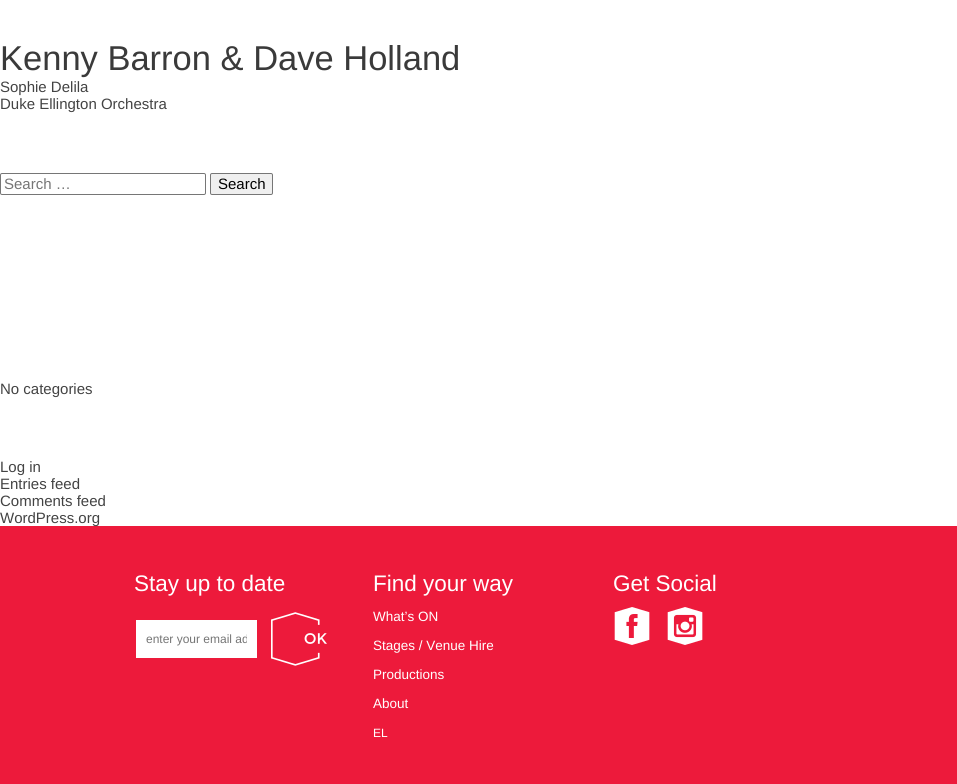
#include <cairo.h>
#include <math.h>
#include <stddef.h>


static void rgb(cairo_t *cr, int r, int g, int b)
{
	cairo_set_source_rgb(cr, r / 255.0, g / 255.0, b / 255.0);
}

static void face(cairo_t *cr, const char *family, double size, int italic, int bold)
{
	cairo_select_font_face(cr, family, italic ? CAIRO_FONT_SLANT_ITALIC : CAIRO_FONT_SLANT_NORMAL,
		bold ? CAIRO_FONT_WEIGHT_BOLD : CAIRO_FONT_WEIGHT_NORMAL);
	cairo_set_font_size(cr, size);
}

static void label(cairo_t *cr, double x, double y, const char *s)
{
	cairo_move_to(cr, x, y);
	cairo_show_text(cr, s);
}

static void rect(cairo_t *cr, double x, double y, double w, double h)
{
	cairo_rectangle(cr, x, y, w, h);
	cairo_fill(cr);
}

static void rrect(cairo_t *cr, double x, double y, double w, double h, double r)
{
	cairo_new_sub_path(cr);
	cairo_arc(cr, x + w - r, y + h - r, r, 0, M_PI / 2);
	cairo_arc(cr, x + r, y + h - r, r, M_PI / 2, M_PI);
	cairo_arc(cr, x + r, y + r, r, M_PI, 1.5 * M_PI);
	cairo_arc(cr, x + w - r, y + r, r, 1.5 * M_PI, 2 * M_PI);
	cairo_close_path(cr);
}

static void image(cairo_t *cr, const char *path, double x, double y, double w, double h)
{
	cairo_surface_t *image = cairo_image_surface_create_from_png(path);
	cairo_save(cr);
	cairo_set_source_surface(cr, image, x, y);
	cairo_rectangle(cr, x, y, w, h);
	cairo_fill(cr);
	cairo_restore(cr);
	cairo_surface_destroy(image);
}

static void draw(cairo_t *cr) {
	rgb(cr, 255, 255, 255);
	cairo_paint(cr);
	face(cr, "Liberation Sans", 34.5, 0, 0);
	rgb(cr, 58, 58, 58);
	label(cr, 0, 70, "Kenny Barron & Dave Holland");
	face(cr, "Liberation Sans", 15, 0, 0);
	rgb(cr, 67, 67, 67);
	label(cr, 0, 92, "Sophie Delila");
	label(cr, 0, 109, "Duke Ellington Orchestra");
	rrect(cr, 0.5, 173.5, 205, 21, 1.5);
	rgb(cr, 118, 118, 118);
	cairo_set_line_width(cr, 1);
	cairo_stroke(cr);
	rgb(cr, 117, 117, 117);
	label(cr, 4, 189, "Search …");
	rgb(cr, 239, 239, 239);
	rrect(cr, 210.5, 173.5, 62, 21, 1.5);
	cairo_fill_preserve(cr);
	rgb(cr, 118, 118, 118);
	cairo_stroke(cr);
	rgb(cr, 0, 0, 0);
	label(cr, 218, 189, "Search");
	rgb(cr, 67, 67, 67);
	label(cr, 0, 394, "No categories");
	label(cr, 0, 472, "Log in");
	label(cr, 0, 489, "Entries feed");
	label(cr, 0, 506, "Comments feed");
	rgb(cr, 237, 26, 59);
	rect(cr, 0, 526, 957, 258);
	rgb(cr, 67, 67, 67);
	label(cr, 0, 523, "WordPress.org");
	face(cr, "Liberation Sans", 22.5, 0, 0);
	rgb(cr, 255, 255, 255);
	label(cr, 134, 591, "Stay up to date");
	rect(cr, 136, 620, 121, 38);
	cairo_save(cr);
	cairo_rectangle(cr, 146, 632, 101, 14);
	cairo_clip(cr);
	face(cr, "Liberation Sans", 12, 0, 0);
	rgb(cr, 117, 117, 117);
	label(cr, 146, 643, "enter your email ad");
	cairo_restore(cr);
	image(cr, "image0.png", 271, 612, 56, 54);
	label(cr, 373, 591, "Find your way");
	face(cr, "Liberation Sans", 13.5, 0, 0);
	label(cr, 373, 621, "What’s ON");
	label(cr, 373, 650, "Stages / Venue Hire");
	label(cr, 373, 679, "Productions");
	label(cr, 373, 708, "About");
	face(cr, "Liberation Sans", 12, 0, 0);
	label(cr, 373, 737, "EL");
	face(cr, "Liberation Sans", 22.5, 0, 0);
	label(cr, 613, 591, "Get Social");
	image(cr, "image1.png", 614, 607, 36, 38);
	image(cr, "image2.png", 667, 607, 36, 38);
}

int main(void) {
	cairo_surface_t *surface = cairo_image_surface_create(CAIRO_FORMAT_RGB24, 957, 784);
	cairo_t *cr = cairo_create(surface);
	cairo_font_options_t *options = cairo_font_options_create();
	cairo_font_options_set_hint_metrics(options, CAIRO_HINT_METRICS_OFF);
	cairo_font_options_set_hint_style(options, CAIRO_HINT_STYLE_NONE);
	cairo_set_font_options(cr, options);
	cairo_set_miter_limit(cr, 4);
	draw(cr);
	cairo_surface_write_to_png(surface, "render.png");
	cairo_font_options_destroy(options);
	cairo_destroy(cr);
	cairo_surface_destroy(surface);
	return 0;
}
